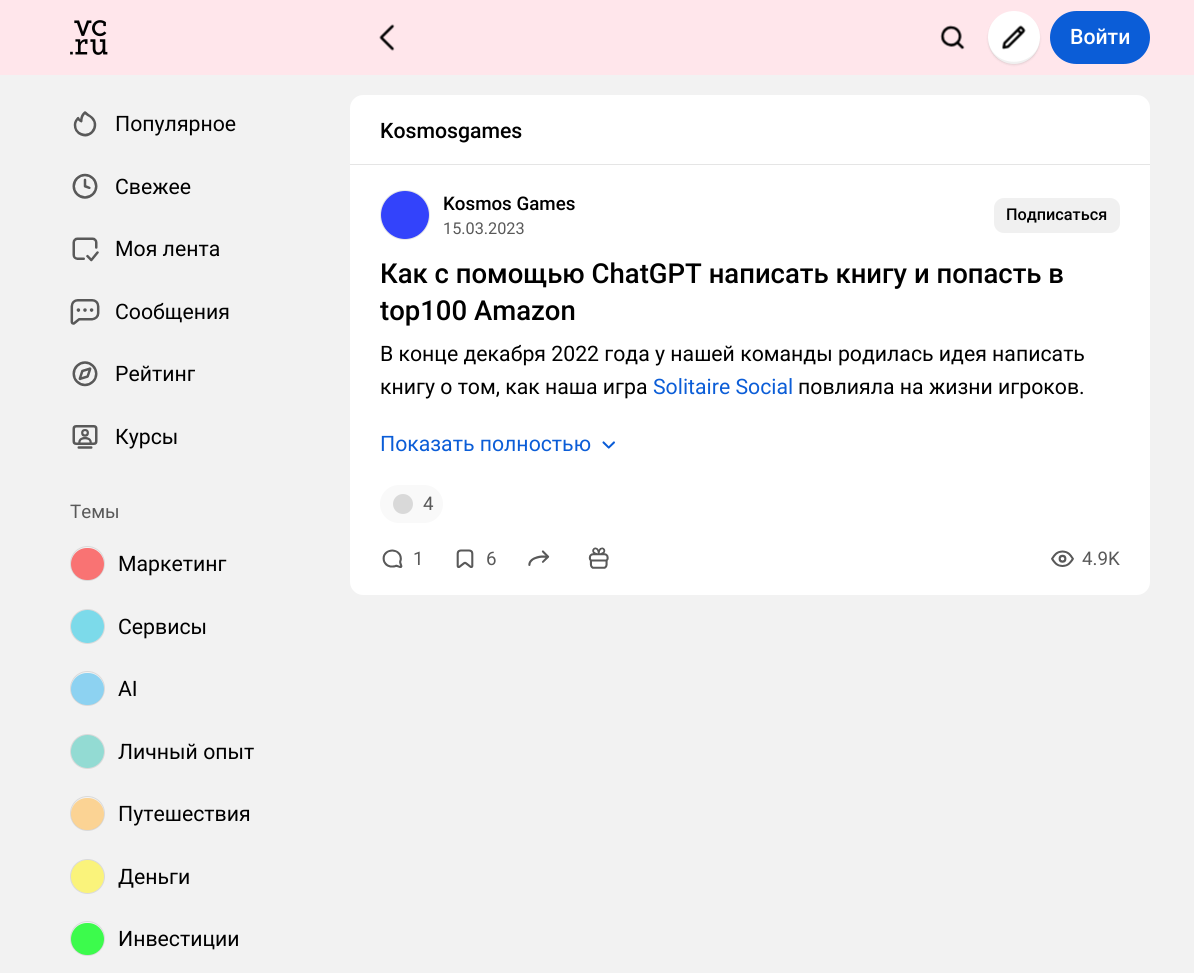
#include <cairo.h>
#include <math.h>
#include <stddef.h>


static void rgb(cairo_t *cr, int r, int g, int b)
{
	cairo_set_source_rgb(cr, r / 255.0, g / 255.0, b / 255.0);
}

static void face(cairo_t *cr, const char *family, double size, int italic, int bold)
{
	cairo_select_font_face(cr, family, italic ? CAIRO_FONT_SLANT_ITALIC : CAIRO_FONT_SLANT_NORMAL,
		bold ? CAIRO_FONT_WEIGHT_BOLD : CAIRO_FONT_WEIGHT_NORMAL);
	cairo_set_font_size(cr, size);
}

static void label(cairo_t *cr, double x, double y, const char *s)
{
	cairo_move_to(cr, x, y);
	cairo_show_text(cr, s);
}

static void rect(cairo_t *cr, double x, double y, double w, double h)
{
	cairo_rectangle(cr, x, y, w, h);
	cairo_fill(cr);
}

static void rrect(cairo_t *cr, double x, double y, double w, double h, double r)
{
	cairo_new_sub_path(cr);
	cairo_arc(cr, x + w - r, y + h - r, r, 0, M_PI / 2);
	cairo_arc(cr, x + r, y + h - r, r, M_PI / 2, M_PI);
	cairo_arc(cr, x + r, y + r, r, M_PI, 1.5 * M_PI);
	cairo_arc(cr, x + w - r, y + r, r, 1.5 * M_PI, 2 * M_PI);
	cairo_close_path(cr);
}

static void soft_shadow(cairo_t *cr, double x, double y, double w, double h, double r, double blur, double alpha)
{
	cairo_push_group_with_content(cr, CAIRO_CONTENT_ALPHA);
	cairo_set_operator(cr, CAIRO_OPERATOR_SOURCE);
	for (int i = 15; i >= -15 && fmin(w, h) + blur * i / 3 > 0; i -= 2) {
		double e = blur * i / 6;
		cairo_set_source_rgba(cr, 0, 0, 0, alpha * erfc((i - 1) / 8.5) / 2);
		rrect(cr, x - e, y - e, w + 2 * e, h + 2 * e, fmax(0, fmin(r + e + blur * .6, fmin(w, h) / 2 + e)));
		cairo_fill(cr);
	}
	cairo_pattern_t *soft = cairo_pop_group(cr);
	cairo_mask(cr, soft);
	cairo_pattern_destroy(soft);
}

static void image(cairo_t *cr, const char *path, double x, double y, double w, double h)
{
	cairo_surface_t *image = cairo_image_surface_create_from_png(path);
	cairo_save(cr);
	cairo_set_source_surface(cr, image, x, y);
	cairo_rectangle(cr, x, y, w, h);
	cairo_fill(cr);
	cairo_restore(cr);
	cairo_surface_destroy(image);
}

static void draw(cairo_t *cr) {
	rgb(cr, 242, 242, 242);
	cairo_paint(cr);
	rgb(cr, 255, 230, 235);
	rect(cr, 0, 0, 1194, 75);
	image(cr, "image0.png", 70, 20, 38, 35);
	image(cr, "image1.png", 379, 24, 16, 27);
	image(cr, "image2.png", 940, 25, 25, 25);
	rgb(cr, 0, 0, 0);
	soft_shadow(cr, 988, 13, 52, 52, 26, 1, 0.1);
	rgb(cr, 255, 255, 255);
	rrect(cr, 988, 11, 52, 53, 26);
	cairo_fill(cr);
	cairo_set_source_rgba(cr, 0, 0, 0, 0.06);
	cairo_new_path(cr);
	cairo_move_to(cr, 988, 37);
	cairo_curve_to(cr, 987, 73, 1041, 73, 1040, 37);
	cairo_curve_to(cr, 1039, 70, 989, 70, 988, 37);
	cairo_close_path(cr);
	cairo_fill(cr);
	image(cr, "image3.png", 1002, 25, 24, 25);
	rgb(cr, 11, 93, 215);
	rrect(cr, 1050, 11, 100, 53, 26.5);
	cairo_fill(cr);
	face(cr, "Roboto Medium", 21.25, 0, 0);
	rgb(cr, 255, 255, 255);
	label(cr, 1070, 44, "Войти");
	image(cr, "image4.png", 73, 111, 24, 26);
	face(cr, "Roboto", 21.25, 0, 0);
	rgb(cr, 0, 0, 0);
	label(cr, 115, 131, "Популярное");
	image(cr, "image5.png", 72, 173, 26, 26);
	label(cr, 115, 194, "Свежее");
	image(cr, "image6.png", 72, 237, 27, 25);
	label(cr, 115, 256, "Моя лента");
	image(cr, "image7.png", 70, 299, 30, 26);
	label(cr, 115, 319, "Сообщения");
	image(cr, "image8.png", 72, 361, 26, 26);
	cairo_save(cr);
	cairo_rectangle(cr, 115, 358, 80, 32);
	cairo_clip(cr);
	label(cr, 115, 381, "Рейтинг");
	cairo_restore(cr);
	image(cr, "image9.png", 72, 425, 26, 24);
	label(cr, 115, 444, "Курсы");
	face(cr, "Roboto", 18.75, 0, 0);
	rgb(cr, 89, 89, 89);
	label(cr, 70, 518, "Темы");
	rgb(cr, 249, 115, 115);
	rrect(cr, 71, 548, 33, 32, 16);
	cairo_fill(cr);
	cairo_arc(cr, 87.5, 563.5, 17, 0, 2 * M_PI);
	cairo_set_source_rgba(cr, 0, 0, 0, 0.1);
	cairo_set_line_width(cr, 1);
	cairo_stroke(cr);
	face(cr, "Roboto", 21.25, 0, 0);
	rgb(cr, 0, 0, 0);
	label(cr, 118, 571, "Маркетинг");
	rgb(cr, 124, 218, 234);
	cairo_new_path(cr);
	cairo_arc(cr, 87.5, 626.5, 16.5, 0, 2 * M_PI);
	cairo_fill(cr);
	cairo_arc(cr, 87.5, 626.5, 17, 0, 2 * M_PI);
	cairo_set_source_rgba(cr, 0, 0, 0, 0.1);
	cairo_stroke(cr);
	rgb(cr, 0, 0, 0);
	label(cr, 118, 634, "Сервисы");
	rgb(cr, 141, 210, 241);
	rrect(cr, 71, 673, 33, 32, 16);
	cairo_fill(cr);
	cairo_arc(cr, 87.5, 688.5, 17, 0, 2 * M_PI);
	cairo_set_source_rgba(cr, 0, 0, 0, 0.1);
	cairo_stroke(cr);
	rgb(cr, 0, 0, 0);
	label(cr, 118, 696, "AI");
	rgb(cr, 147, 219, 211);
	cairo_new_path(cr);
	cairo_arc(cr, 87.5, 751.5, 16.5, 0, 2 * M_PI);
	cairo_fill(cr);
	cairo_arc(cr, 87.5, 751.5, 17, 0, 2 * M_PI);
	cairo_set_source_rgba(cr, 0, 0, 0, 0.1);
	cairo_stroke(cr);
	rgb(cr, 0, 0, 0);
	label(cr, 118, 759, "Личный опыт");
	rgb(cr, 251, 211, 148);
	rrect(cr, 71, 798, 33, 32, 16);
	cairo_fill(cr);
	cairo_arc(cr, 87.5, 813.5, 17, 0, 2 * M_PI);
	cairo_set_source_rgba(cr, 0, 0, 0, 0.1);
	cairo_stroke(cr);
	rgb(cr, 0, 0, 0);
	label(cr, 118, 821, "Путешествия");
	rgb(cr, 250, 243, 123);
	cairo_new_path(cr);
	cairo_arc(cr, 87.5, 876.5, 16.5, 0, 2 * M_PI);
	cairo_fill(cr);
	cairo_arc(cr, 87.5, 876.5, 17, 0, 2 * M_PI);
	cairo_set_source_rgba(cr, 0, 0, 0, 0.1);
	cairo_stroke(cr);
	rgb(cr, 0, 0, 0);
	label(cr, 118, 884, "Деньги");
	rgb(cr, 60, 251, 76);
	rrect(cr, 71, 923, 33, 32, 16);
	cairo_fill(cr);
	cairo_arc(cr, 87.5, 938.5, 17, 0, 2 * M_PI);
	cairo_set_source_rgba(cr, 0, 0, 0, 0.1);
	cairo_stroke(cr);
	rgb(cr, 0, 0, 0);
	label(cr, 118, 946, "Инвестиции");
	rgb(cr, 255, 255, 255);
	cairo_new_path(cr);
	cairo_move_to(cr, 363, 95);
	cairo_line_to(cr, 1137, 95);
	cairo_curve_to(cr, 1144, 95, 1150, 101, 1150, 108);
	cairo_line_to(cr, 1150, 165);
	cairo_line_to(cr, 350, 165);
	cairo_line_to(cr, 350, 108);
	cairo_curve_to(cr, 350, 101, 356, 95, 363, 95);
	cairo_close_path(cr);
	cairo_fill(cr);
	rgb(cr, 229, 229, 229);
	rect(cr, 350, 164, 800, 1);
	face(cr, "Roboto Medium", 21.25, 0, 0);
	rgb(cr, 0, 0, 0);
	label(cr, 380, 138, "Kosmosgames");
	rgb(cr, 255, 255, 255);
	cairo_new_path(cr);
	cairo_move_to(cr, 350, 165);
	cairo_line_to(cr, 1150, 165);
	cairo_line_to(cr, 1150, 582);
	cairo_curve_to(cr, 1150, 589, 1144, 595, 1137, 595);
	cairo_line_to(cr, 363, 595);
	cairo_curve_to(cr, 356, 595, 350, 589, 350, 582);
	cairo_close_path(cr);
	cairo_fill(cr);
	rgb(cr, 51, 67, 251);
	cairo_arc(cr, 405, 215, 24, 0, 2 * M_PI);
	cairo_fill(cr);
	cairo_arc(cr, 405, 215, 24.5, 0, 2 * M_PI);
	cairo_set_source_rgba(cr, 0, 0, 0, 0.1);
	cairo_stroke(cr);
	face(cr, "Roboto Medium", 18.75, 0, 0);
	rgb(cr, 0, 0, 0);
	label(cr, 443, 210, "Kosmos Games");
	face(cr, "Roboto", 16.25, 0, 0);
	rgb(cr, 89, 89, 89);
	label(cr, 443, 234, "15.03.2023");
	rgb(cr, 240, 240, 240);
	rrect(cr, 994, 198, 126, 35, 10);
	cairo_fill(cr);
	face(cr, "Roboto Medium", 16.25, 0, 0);
	rgb(cr, 0, 0, 0);
	label(cr, 1006, 220, "Подписаться");
	face(cr, "Roboto Medium", 27.5, 0, 0);
	label(cr, 380, 283, "Как с помощью ChatGPT написать книгу и попасть в");
	label(cr, 380, 320, "top100 Amazon");
	face(cr, "Roboto", 21.25, 0, 0);
	label(cr, 380, 361, "В конце декабря 2022 года у нашей команды родилась идея написать");
	label(cr, 380, 394, "книгу о том, как наша игра");
	rgb(cr, 11, 93, 215);
	label(cr, 653, 394, "Solitaire Social");
	rgb(cr, 0, 0, 0);
	label(cr, 798, 394, "повлияла на жизни игроков.");
	rgb(cr, 11, 93, 215);
	label(cr, 380, 451, "Показать полностью");
	image(cr, "image10.png", 602, 441, 13, 8);
	rgb(cr, 249, 249, 249);
	rrect(cr, 380, 485, 63, 38, 19);
	cairo_fill(cr);
	rgb(cr, 217, 217, 217);
	cairo_arc(cr, 403, 504, 10, 0, 2 * M_PI);
	cairo_fill(cr);
	face(cr, "Roboto", 18.75, 0, 0);
	rgb(cr, 89, 89, 89);
	label(cr, 423, 510, "4");
	image(cr, "image11.png", 382, 549, 21, 19);
	label(cr, 413, 565, "1");
	image(cr, "image12.png", 456, 549, 18, 19);
	label(cr, 486, 565, "6");
	image(cr, "image13.png", 528, 550, 22, 16);
	image(cr, "image14.png", 588, 547, 21, 22);
	image(cr, "image15.png", 1051, 550, 23, 17);
	label(cr, 1082, 565, "4.9K");
}

int main(void) {
	cairo_surface_t *surface = cairo_image_surface_create(CAIRO_FORMAT_RGB24, 1194, 973);
	cairo_t *cr = cairo_create(surface);
	cairo_font_options_t *options = cairo_font_options_create();
	cairo_font_options_set_hint_metrics(options, CAIRO_HINT_METRICS_OFF);
	cairo_font_options_set_hint_style(options, CAIRO_HINT_STYLE_NONE);
	cairo_set_font_options(cr, options);
	cairo_set_miter_limit(cr, 4);
	draw(cr);
	cairo_surface_write_to_png(surface, "render.png");
	cairo_font_options_destroy(options);
	cairo_destroy(cr);
	cairo_surface_destroy(surface);
	return 0;
}
